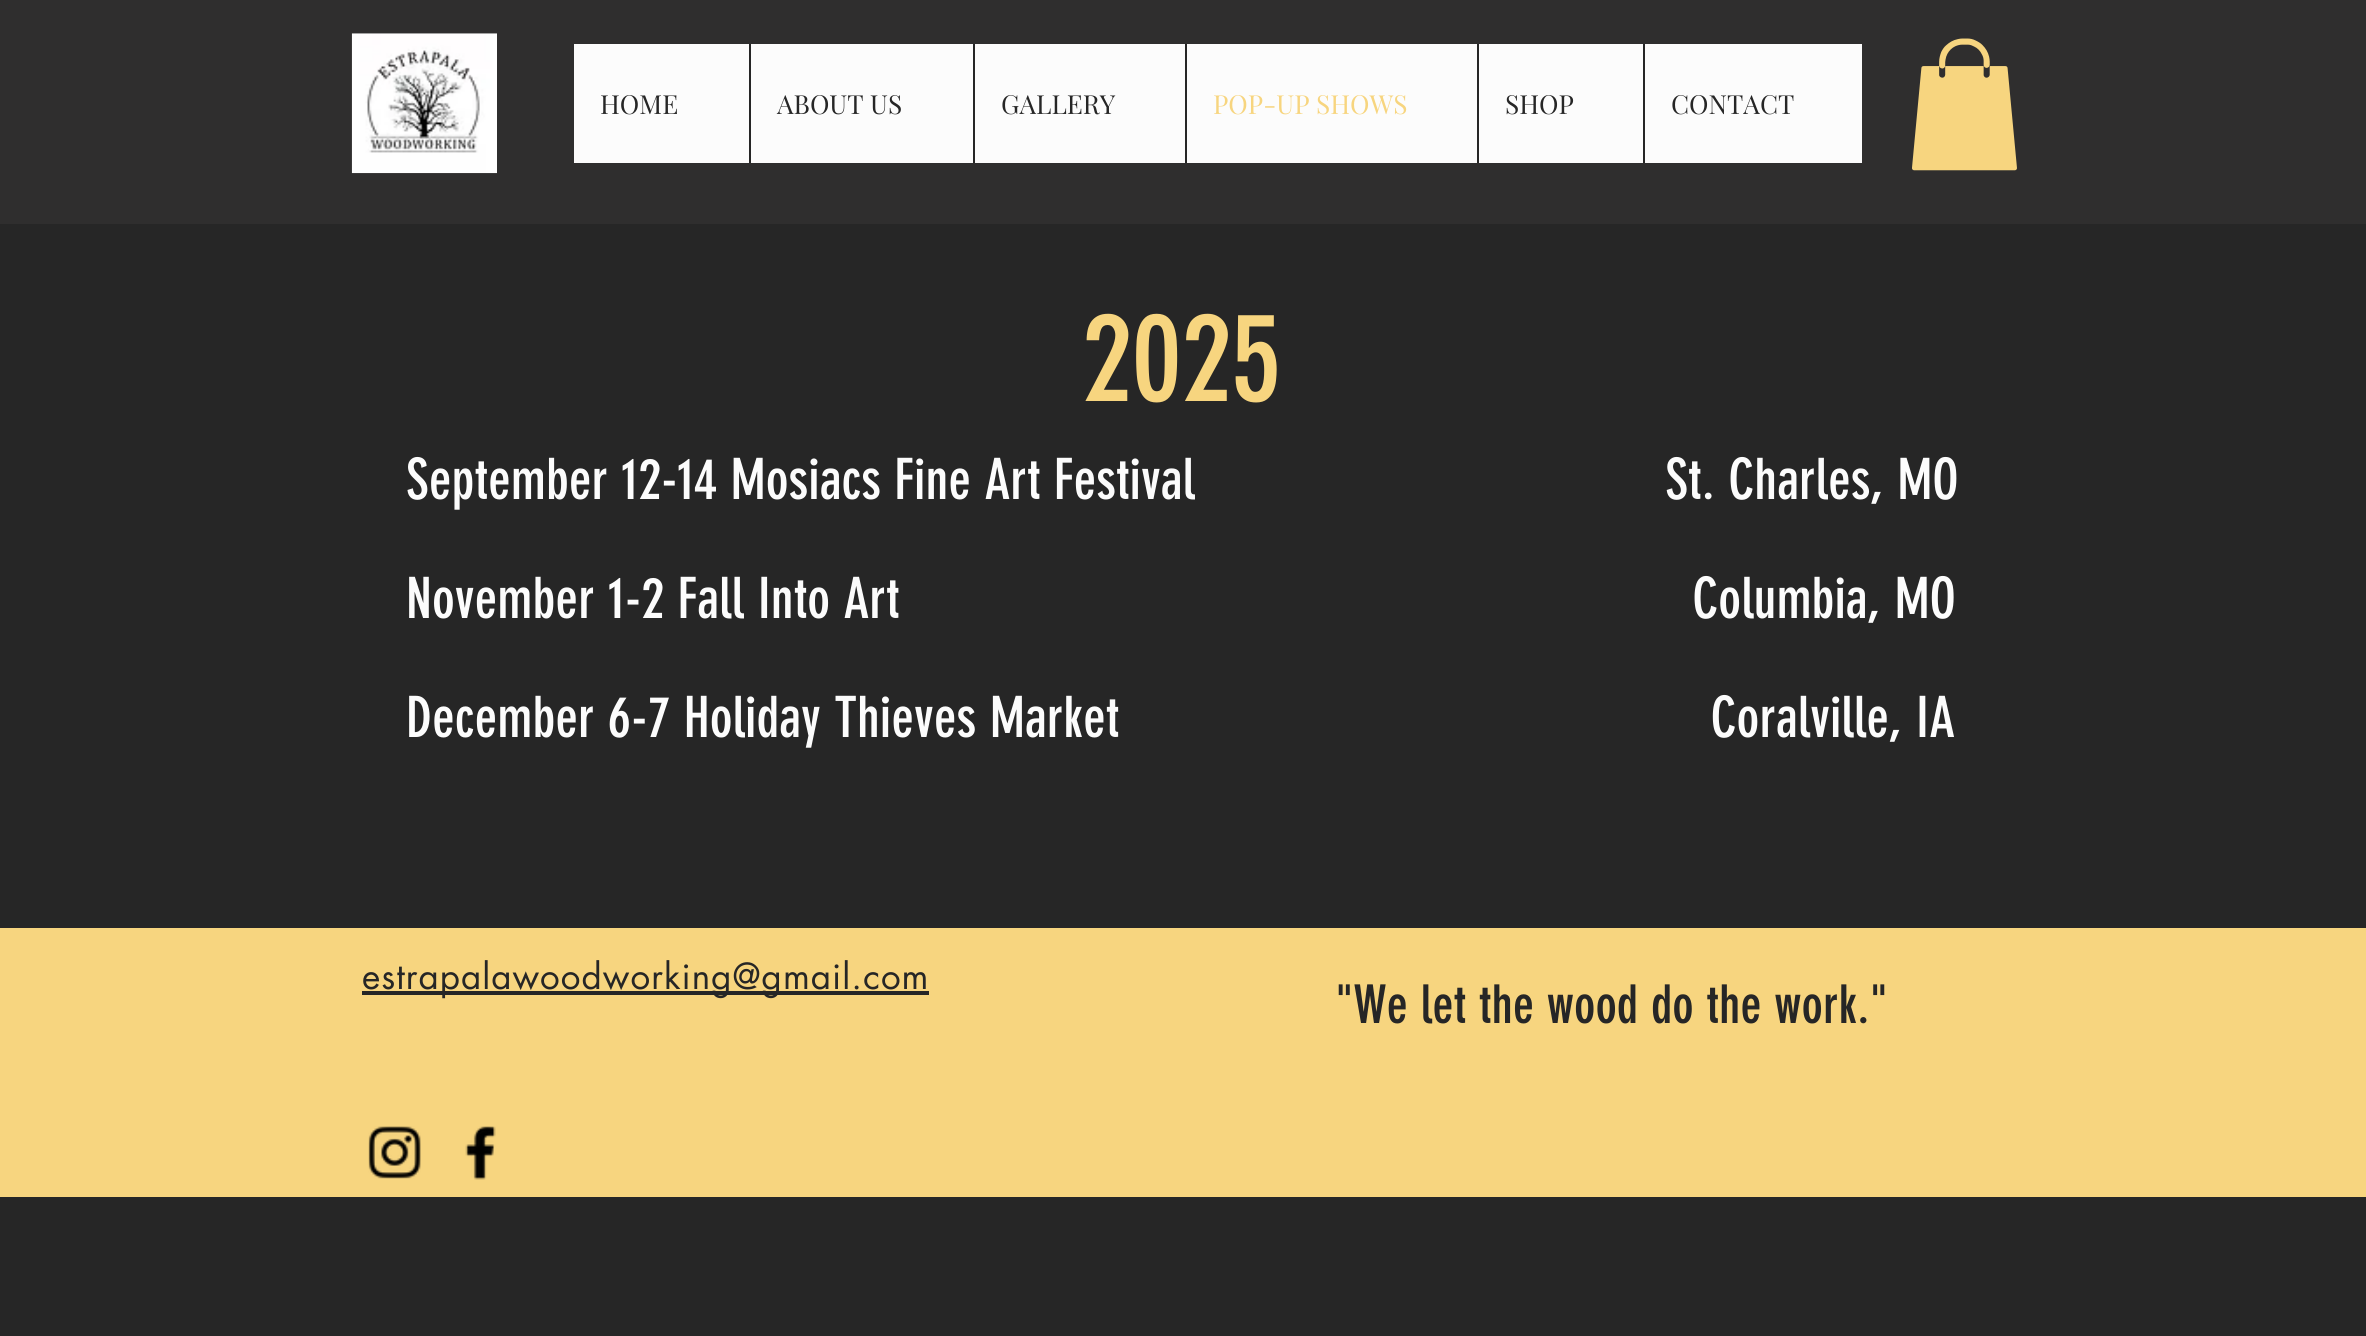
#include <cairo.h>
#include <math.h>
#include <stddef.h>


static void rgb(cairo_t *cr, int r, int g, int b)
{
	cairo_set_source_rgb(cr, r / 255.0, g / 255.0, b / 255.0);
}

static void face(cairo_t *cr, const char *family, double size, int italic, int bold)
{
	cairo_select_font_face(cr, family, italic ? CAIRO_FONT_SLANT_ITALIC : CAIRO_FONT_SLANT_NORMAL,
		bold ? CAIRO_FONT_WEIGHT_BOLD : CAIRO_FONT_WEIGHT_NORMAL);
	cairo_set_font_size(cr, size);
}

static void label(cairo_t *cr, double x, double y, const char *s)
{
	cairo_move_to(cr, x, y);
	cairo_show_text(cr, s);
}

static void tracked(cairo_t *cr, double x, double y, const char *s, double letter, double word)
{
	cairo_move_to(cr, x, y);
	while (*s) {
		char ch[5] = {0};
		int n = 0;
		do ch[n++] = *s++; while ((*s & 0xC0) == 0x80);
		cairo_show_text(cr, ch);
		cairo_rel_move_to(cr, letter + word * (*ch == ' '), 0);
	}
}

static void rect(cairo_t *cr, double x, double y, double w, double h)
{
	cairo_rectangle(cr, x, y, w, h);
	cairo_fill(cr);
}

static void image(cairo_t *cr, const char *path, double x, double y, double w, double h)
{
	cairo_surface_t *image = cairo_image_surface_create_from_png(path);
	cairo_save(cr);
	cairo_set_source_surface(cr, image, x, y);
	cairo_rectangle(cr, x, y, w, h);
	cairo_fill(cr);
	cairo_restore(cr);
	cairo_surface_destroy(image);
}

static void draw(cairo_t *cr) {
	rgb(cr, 38, 38, 38);
	cairo_paint(cr);
	rgb(cr, 47, 46, 46);
	rect(cr, 0, 0, 2366, 224);
	image(cr, "image0.png", 351, 33, 146, 141);
	rgb(cr, 252, 252, 252);
	rect(cr, 574, 44, 1288, 119);
	face(cr, "Playfair Display", 26.25, 0, 0);
	rgb(cr, 38, 38, 38);
	label(cr, 600, 114, "HOME");
	rect(cr, 749, 44, 2, 119);
	label(cr, 777, 114, "ABOUT US");
	rect(cr, 973, 44, 2, 119);
	label(cr, 1001, 114, "GALLERY");
	rect(cr, 1185, 44, 2, 119);
	rgb(cr, 247, 213, 127);
	label(cr, 1213, 114, "POP-UP SHOWS");
	rgb(cr, 38, 38, 38);
	rect(cr, 1477, 44, 2, 119);
	label(cr, 1505, 114, "SHOP");
	rect(cr, 1643, 44, 2, 119);
	label(cr, 1671, 114, "CONTACT");
	image(cr, "image1.png", 1912, 38, 105, 133);
	face(cr, "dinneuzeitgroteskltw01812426", 122, 0, 0);
	rgb(cr, 247, 213, 127);
	label(cr, 1082, 401, "2025");
	face(cr, "dinneuzeitgroteskltw01812426", 56, 0, 0);
	rgb(cr, 252, 252, 252);
	label(cr, 406, 499, "September 12-14 Mosiacs Fine Art Festival                                   St. Charles, MO");
	label(cr, 406, 618, "November 1-2 Fall Into Art                                                           Columbia, MO");
	label(cr, 406, 737, "December 6-7 Holiday Thieves Market                                            Coralville, IA");
	rgb(cr, 247, 213, 127);
	rect(cr, 0, 928, 2366, 269);
	rgb(cr, 38, 38, 38);
	rect(cr, 362, 991, 567, 4);
	face(cr, "futura", 35, 0, 0);
	tracked(cr, 362, 989, "estrapalawoodworking@gmail.com", 1.05, 0);
	face(cr, "dinneuzeitgroteskltw01812426", 52.5, 0, 0);
	label(cr, 1335, 1023, "\"We let the wood do the work.\"");
	image(cr, "image2.png", 368, 1126, 53, 53);
	image(cr, "image3.png", 465, 1126, 31, 54);
}

int main(void) {
	cairo_surface_t *surface = cairo_image_surface_create(CAIRO_FORMAT_RGB24, 2366, 1336);
	cairo_t *cr = cairo_create(surface);
	cairo_font_options_t *options = cairo_font_options_create();
	cairo_font_options_set_hint_metrics(options, CAIRO_HINT_METRICS_OFF);
	cairo_font_options_set_hint_style(options, CAIRO_HINT_STYLE_NONE);
	cairo_set_font_options(cr, options);
	cairo_set_miter_limit(cr, 4);
	draw(cr);
	cairo_surface_write_to_png(surface, "render.png");
	cairo_font_options_destroy(options);
	cairo_destroy(cr);
	cairo_surface_destroy(surface);
	return 0;
}
